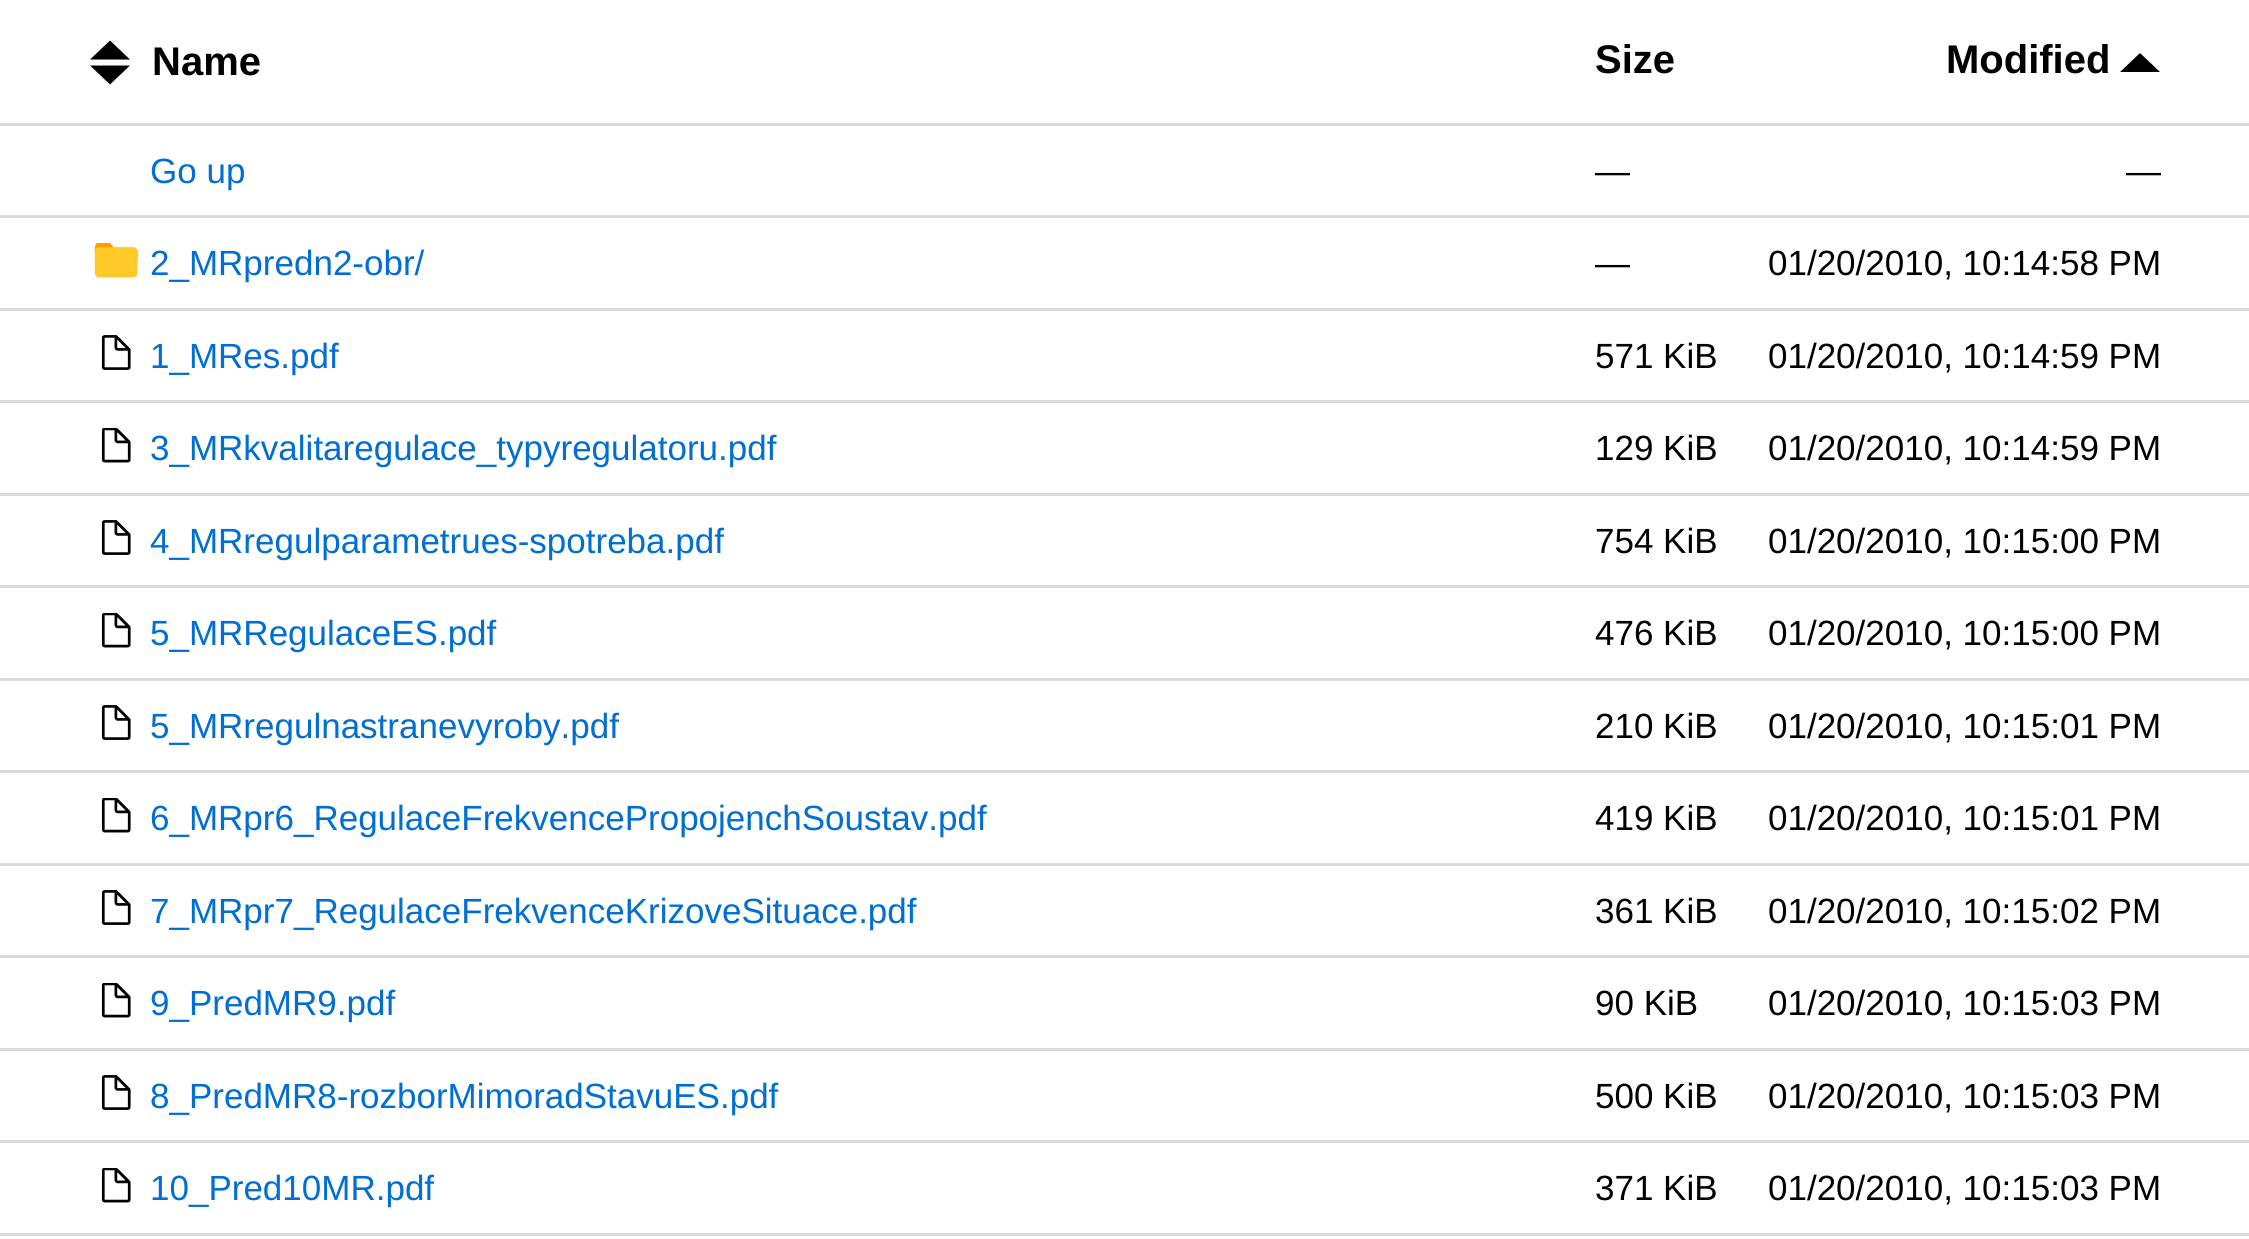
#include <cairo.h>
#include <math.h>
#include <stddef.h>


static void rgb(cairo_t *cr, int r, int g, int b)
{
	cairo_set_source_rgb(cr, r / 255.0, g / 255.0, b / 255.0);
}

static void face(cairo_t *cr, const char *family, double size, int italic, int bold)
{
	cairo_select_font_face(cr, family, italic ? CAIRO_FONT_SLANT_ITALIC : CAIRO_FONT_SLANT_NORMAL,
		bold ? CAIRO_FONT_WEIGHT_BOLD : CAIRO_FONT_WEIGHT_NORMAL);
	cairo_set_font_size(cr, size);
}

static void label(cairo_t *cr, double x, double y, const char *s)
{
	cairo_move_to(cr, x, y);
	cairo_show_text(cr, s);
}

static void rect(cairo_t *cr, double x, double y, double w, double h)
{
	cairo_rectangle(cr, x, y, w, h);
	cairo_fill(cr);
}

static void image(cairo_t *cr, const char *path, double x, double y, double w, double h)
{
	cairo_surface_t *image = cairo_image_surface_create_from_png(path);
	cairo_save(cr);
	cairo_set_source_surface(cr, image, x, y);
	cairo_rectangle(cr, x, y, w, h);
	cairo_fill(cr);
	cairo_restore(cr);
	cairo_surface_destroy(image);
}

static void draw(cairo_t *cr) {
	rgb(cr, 255, 255, 255);
	cairo_paint(cr);
	rgb(cr, 218, 218, 218);
	rect(cr, 0, 123, 2249, 3);
	rgb(cr, 0, 0, 0);
	cairo_new_path(cr);
	cairo_move_to(cr, 130, 59.5);
	cairo_line_to(cr, 90, 59.5);
	cairo_line_to(cr, 110, 40.5);
	cairo_line_to(cr, 120, 50);
	cairo_close_path(cr);
	cairo_move_to(cr, 130, 65.5);
	cairo_line_to(cr, 90, 65.5);
	cairo_line_to(cr, 110, 84.5);
	cairo_line_to(cr, 120, 75);
	cairo_close_path(cr);
	cairo_fill(cr);
	face(cr, "Liberation Sans", 40, 0, 1);
	label(cr, 152, 75, "Name");
	label(cr, 1595, 73, "Size");
	label(cr, 1946, 73, "Modified");
	cairo_new_path(cr);
	cairo_move_to(cr, 2160, 72);
	cairo_line_to(cr, 2120, 72);
	cairo_line_to(cr, 2140, 53);
	cairo_line_to(cr, 2150, 62.5);
	cairo_close_path(cr);
	cairo_fill(cr);
	rgb(cr, 218, 218, 218);
	rect(cr, 0, 215, 2249, 3);
	face(cr, "Liberation Sans", 35, 0, 0);
	rgb(cr, 0, 110, 211);
	label(cr, 150, 183, "Go up");
	rgb(cr, 0, 0, 0);
	label(cr, 1595, 183, "—");
	label(cr, 2126, 183, "—");
	rgb(cr, 218, 218, 218);
	rect(cr, 0, 308, 2249, 3);
	image(cr, "image0.png", 94, 243, 44, 35);
	rgb(cr, 0, 110, 211);
	label(cr, 150, 275, "2_MRpredn2-obr/");
	rgb(cr, 0, 0, 0);
	label(cr, 1595, 275, "—");
	label(cr, 1768, 275, "01/20/2010, 10:14:58 PM");
	rgb(cr, 218, 218, 218);
	rect(cr, 0, 400, 2249, 3);
	image(cr, "image1.png", 101, 335, 30, 35);
	rgb(cr, 0, 110, 211);
	label(cr, 150, 368, "1_MRes.pdf");
	rgb(cr, 0, 0, 0);
	label(cr, 1595, 368, "571 KiB");
	label(cr, 1768, 368, "01/20/2010, 10:14:59 PM");
	rgb(cr, 218, 218, 218);
	rect(cr, 0, 493, 2249, 3);
	image(cr, "image2.png", 101, 428, 30, 35);
	rgb(cr, 0, 110, 211);
	label(cr, 150, 460, "3_MRkvalitaregulace_typyregulatoru.pdf");
	rgb(cr, 0, 0, 0);
	label(cr, 1595, 460, "129 KiB");
	label(cr, 1768, 460, "01/20/2010, 10:14:59 PM");
	rgb(cr, 218, 218, 218);
	rect(cr, 0, 585, 2249, 3);
	image(cr, "image1.png", 101, 520, 30, 35);
	rgb(cr, 0, 110, 211);
	label(cr, 150, 553, "4_MRregulparametrues-spotreba.pdf");
	rgb(cr, 0, 0, 0);
	label(cr, 1595, 553, "754 KiB");
	label(cr, 1768, 553, "01/20/2010, 10:15:00 PM");
	rgb(cr, 218, 218, 218);
	rect(cr, 0, 678, 2249, 3);
	image(cr, "image2.png", 101, 613, 30, 35);
	rgb(cr, 0, 110, 211);
	label(cr, 150, 645, "5_MRRegulaceES.pdf");
	rgb(cr, 0, 0, 0);
	label(cr, 1595, 645, "476 KiB");
	label(cr, 1768, 645, "01/20/2010, 10:15:00 PM");
	rgb(cr, 218, 218, 218);
	rect(cr, 0, 770, 2249, 3);
	image(cr, "image1.png", 101, 705, 30, 35);
	rgb(cr, 0, 110, 211);
	label(cr, 150, 738, "5_MRregulnastranevyroby.pdf");
	rgb(cr, 0, 0, 0);
	label(cr, 1595, 738, "210 KiB");
	label(cr, 1768, 738, "01/20/2010, 10:15:01 PM");
	rgb(cr, 218, 218, 218);
	rect(cr, 0, 863, 2249, 3);
	image(cr, "image2.png", 101, 798, 30, 35);
	rgb(cr, 0, 110, 211);
	label(cr, 150, 830, "6_MRpr6_RegulaceFrekvencePropojenchSoustav.pdf");
	rgb(cr, 0, 0, 0);
	label(cr, 1595, 830, "419 KiB");
	label(cr, 1768, 830, "01/20/2010, 10:15:01 PM");
	rgb(cr, 218, 218, 218);
	rect(cr, 0, 955, 2249, 3);
	image(cr, "image1.png", 101, 890, 30, 35);
	rgb(cr, 0, 110, 211);
	label(cr, 150, 923, "7_MRpr7_RegulaceFrekvenceKrizoveSituace.pdf");
	rgb(cr, 0, 0, 0);
	label(cr, 1595, 923, "361 KiB");
	label(cr, 1768, 923, "01/20/2010, 10:15:02 PM");
	rgb(cr, 218, 218, 218);
	rect(cr, 0, 1048, 2249, 3);
	image(cr, "image2.png", 101, 983, 30, 35);
	rgb(cr, 0, 110, 211);
	label(cr, 150, 1015, "9_PredMR9.pdf");
	rgb(cr, 0, 0, 0);
	label(cr, 1595, 1015, "90 KiB");
	label(cr, 1768, 1015, "01/20/2010, 10:15:03 PM");
	rgb(cr, 218, 218, 218);
	rect(cr, 0, 1140, 2249, 3);
	image(cr, "image1.png", 101, 1075, 30, 35);
	rgb(cr, 0, 110, 211);
	label(cr, 150, 1108, "8_PredMR8-rozborMimoradStavuES.pdf");
	rgb(cr, 0, 0, 0);
	label(cr, 1595, 1108, "500 KiB");
	label(cr, 1768, 1108, "01/20/2010, 10:15:03 PM");
	rgb(cr, 218, 218, 218);
	rect(cr, 0, 1233, 2249, 3);
	image(cr, "image2.png", 101, 1168, 30, 35);
	rgb(cr, 0, 110, 211);
	label(cr, 150, 1200, "10_Pred10MR.pdf");
	rgb(cr, 0, 0, 0);
	label(cr, 1595, 1200, "371 KiB");
	label(cr, 1768, 1200, "01/20/2010, 10:15:03 PM");
}

int main(void) {
	cairo_surface_t *surface = cairo_image_surface_create(CAIRO_FORMAT_RGB24, 2249, 1239);
	cairo_t *cr = cairo_create(surface);
	cairo_font_options_t *options = cairo_font_options_create();
	cairo_font_options_set_hint_metrics(options, CAIRO_HINT_METRICS_OFF);
	cairo_font_options_set_hint_style(options, CAIRO_HINT_STYLE_NONE);
	cairo_set_font_options(cr, options);
	cairo_set_miter_limit(cr, 4);
	draw(cr);
	cairo_surface_write_to_png(surface, "render.png");
	cairo_font_options_destroy(options);
	cairo_destroy(cr);
	cairo_surface_destroy(surface);
	return 0;
}
